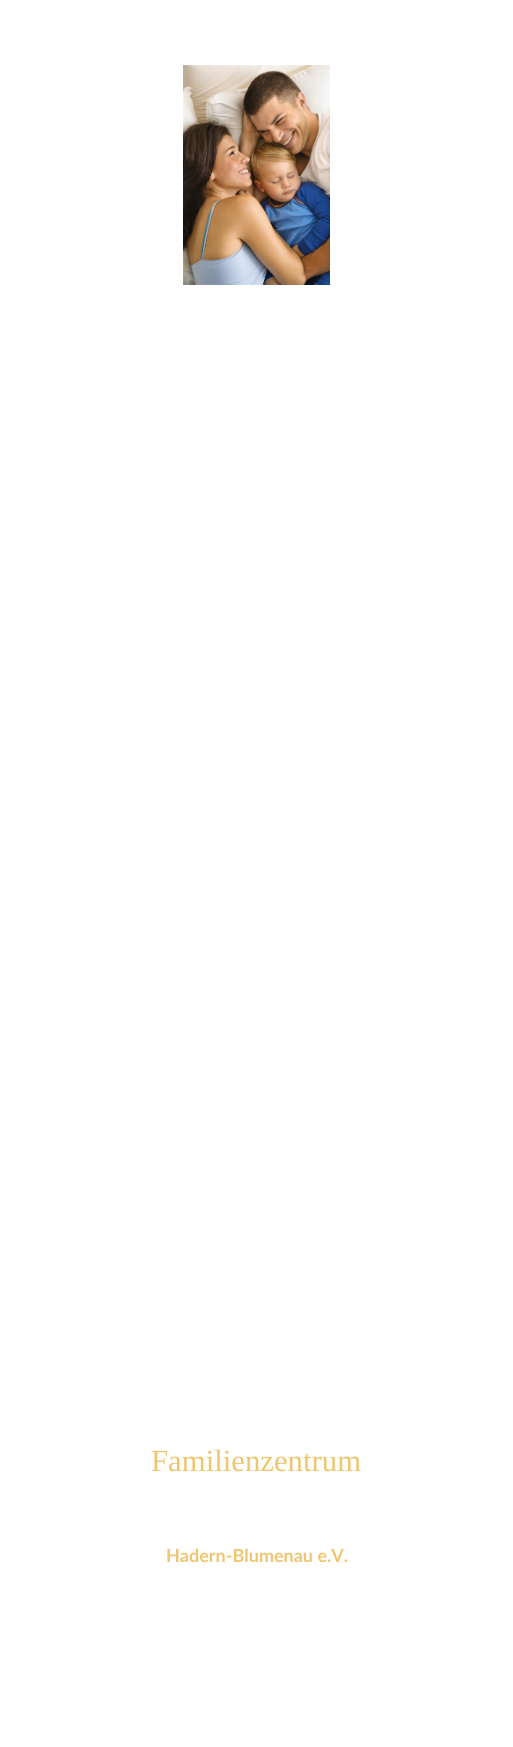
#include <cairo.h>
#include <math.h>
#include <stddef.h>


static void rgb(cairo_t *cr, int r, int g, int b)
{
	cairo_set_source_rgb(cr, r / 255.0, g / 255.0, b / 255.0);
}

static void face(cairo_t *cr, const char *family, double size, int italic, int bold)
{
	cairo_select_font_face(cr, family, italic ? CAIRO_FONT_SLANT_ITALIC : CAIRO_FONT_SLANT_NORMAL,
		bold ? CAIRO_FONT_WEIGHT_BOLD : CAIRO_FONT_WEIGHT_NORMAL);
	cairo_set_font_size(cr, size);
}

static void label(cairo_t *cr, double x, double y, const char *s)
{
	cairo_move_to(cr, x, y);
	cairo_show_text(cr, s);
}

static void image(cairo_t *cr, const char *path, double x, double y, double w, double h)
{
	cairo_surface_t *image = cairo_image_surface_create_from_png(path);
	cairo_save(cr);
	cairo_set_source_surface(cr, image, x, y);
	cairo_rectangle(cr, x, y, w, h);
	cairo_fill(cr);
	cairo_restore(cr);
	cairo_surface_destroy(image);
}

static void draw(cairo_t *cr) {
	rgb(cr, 255, 255, 255);
	cairo_paint(cr);
	image(cr, "image0.png", 183, 65, 147, 220);
	face(cr, "Liberation Serif", 30.75, 0, 0);
	rgb(cr, 239, 197, 111);
	label(cr, 151, 1471, "Familienzentrum");
	face(cr, "Lato", 18, 0, 1);
	label(cr, 166, 1562, "Hadern-Blumenau e.V.");
}

int main(void) {
	cairo_surface_t *surface = cairo_image_surface_create(CAIRO_FORMAT_RGB24, 513, 1747);
	cairo_t *cr = cairo_create(surface);
	cairo_font_options_t *options = cairo_font_options_create();
	cairo_font_options_set_hint_metrics(options, CAIRO_HINT_METRICS_OFF);
	cairo_font_options_set_hint_style(options, CAIRO_HINT_STYLE_NONE);
	cairo_set_font_options(cr, options);
	cairo_set_miter_limit(cr, 4);
	draw(cr);
	cairo_surface_write_to_png(surface, "render.png");
	cairo_font_options_destroy(options);
	cairo_destroy(cr);
	cairo_surface_destroy(surface);
	return 0;
}
